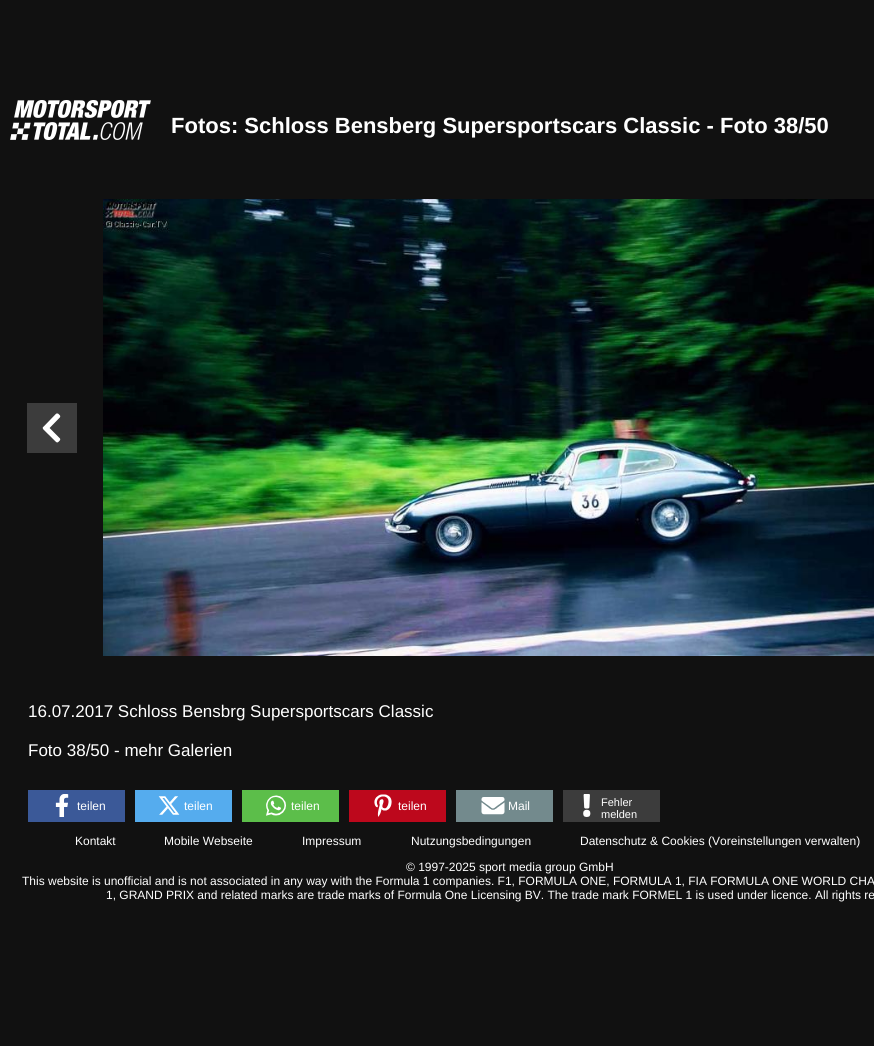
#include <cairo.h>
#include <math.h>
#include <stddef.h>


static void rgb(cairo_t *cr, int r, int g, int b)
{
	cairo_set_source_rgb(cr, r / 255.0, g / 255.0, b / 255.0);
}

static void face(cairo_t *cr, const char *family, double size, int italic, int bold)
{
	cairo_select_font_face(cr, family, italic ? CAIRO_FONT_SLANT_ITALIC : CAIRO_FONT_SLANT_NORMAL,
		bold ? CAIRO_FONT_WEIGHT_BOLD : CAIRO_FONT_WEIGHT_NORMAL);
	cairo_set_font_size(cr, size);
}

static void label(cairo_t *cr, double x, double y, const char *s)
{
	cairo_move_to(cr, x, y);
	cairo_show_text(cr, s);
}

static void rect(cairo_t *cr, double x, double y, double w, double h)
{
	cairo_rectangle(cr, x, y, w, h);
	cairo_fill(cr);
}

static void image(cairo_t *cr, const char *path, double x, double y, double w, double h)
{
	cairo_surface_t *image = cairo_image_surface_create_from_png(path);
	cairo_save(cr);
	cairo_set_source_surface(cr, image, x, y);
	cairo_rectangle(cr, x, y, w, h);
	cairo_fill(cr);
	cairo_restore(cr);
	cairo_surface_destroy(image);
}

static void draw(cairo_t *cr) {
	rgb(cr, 17, 17, 17);
	cairo_paint(cr);
	image(cr, "image0.png", 10, 100, 141, 40);
	face(cr, "Liberation Sans", 22, 0, 1);
	rgb(cr, 255, 255, 255);
	label(cr, 171, 133, "Fotos: Schloss Bensberg Supersportscars Classic - Foto 38/50");
	rgb(cr, 60, 60, 60);
	rect(cr, 27, 403, 50, 50);
	image(cr, "image1.png", 42, 413, 19, 30);
	image(cr, "image2.png", 103, 199, 771, 457);
	face(cr, "Liberation Sans", 17, 0, 0);
	rgb(cr, 255, 255, 255);
	label(cr, 28, 717, "16.07.2017 Schloss Bensbrg Supersportscars Classic");
	label(cr, 28, 756, "Foto 38/50 - mehr Galerien");
	rgb(cr, 59, 89, 152);
	rect(cr, 28, 790, 97, 32);
	image(cr, "image3.png", 55, 794, 14, 23);
	face(cr, "Liberation Sans", 12, 0, 0);
	rgb(cr, 255, 255, 255);
	label(cr, 77, 810, "teilen");
	rgb(cr, 85, 172, 238);
	rect(cr, 135, 790, 97, 32);
	image(cr, "image4.png", 158, 796, 22, 19);
	rgb(cr, 255, 255, 255);
	label(cr, 184, 810, "teilen");
	rgb(cr, 92, 190, 74);
	rect(cr, 242, 790, 97, 32);
	image(cr, "image5.png", 266, 795, 20, 21);
	rgb(cr, 255, 255, 255);
	label(cr, 291, 810, "teilen");
	rgb(cr, 189, 8, 28);
	rect(cr, 349, 790, 97, 32);
	image(cr, "image6.png", 374, 794, 18, 23);
	rgb(cr, 255, 255, 255);
	label(cr, 398, 810, "teilen");
	rgb(cr, 115, 138, 141);
	rect(cr, 456, 790, 97, 32);
	image(cr, "image7.png", 481, 797, 24, 18);
	rgb(cr, 255, 255, 255);
	label(cr, 508, 810, "Mail");
	rgb(cr, 60, 60, 60);
	rect(cr, 563, 790, 97, 32);
	image(cr, "image8.png", 583, 794, 8, 23);
	face(cr, "Liberation Sans", 11, 0, 0);
	rgb(cr, 255, 255, 255);
	label(cr, 601, 806, "Fehler");
	label(cr, 601, 818, "melden");
	face(cr, "Liberation Sans", 12, 0, 0);
	label(cr, 75, 845, "Kontakt");
	label(cr, 164, 845, "Mobile Webseite");
	label(cr, 302, 845, "Impressum");
	label(cr, 411, 845, "Nutzungsbedingungen");
	label(cr, 580, 845, "Datenschutz & Cookies (Voreinstellungen verwalten)");
	label(cr, 406, 871, "© 1997-2025 sport media group GmbH");
	label(cr, 22, 885, "This website is unofficial and is not associated in any way with the Formula 1 companies. F1, FORMULA ONE, FORMULA 1, FIA FORMULA ONE WORLD CHA");
	label(cr, 106, 899, "1, GRAND PRIX and related marks are trade marks of Formula One Licensing BV. The trade mark FORMEL 1 is used under licence. All rights re");
}

int main(void) {
	cairo_surface_t *surface = cairo_image_surface_create(CAIRO_FORMAT_RGB24, 874, 1046);
	cairo_t *cr = cairo_create(surface);
	cairo_font_options_t *options = cairo_font_options_create();
	cairo_font_options_set_hint_metrics(options, CAIRO_HINT_METRICS_OFF);
	cairo_font_options_set_hint_style(options, CAIRO_HINT_STYLE_NONE);
	cairo_set_font_options(cr, options);
	cairo_set_miter_limit(cr, 4);
	draw(cr);
	cairo_surface_write_to_png(surface, "render.png");
	cairo_font_options_destroy(options);
	cairo_destroy(cr);
	cairo_surface_destroy(surface);
	return 0;
}
